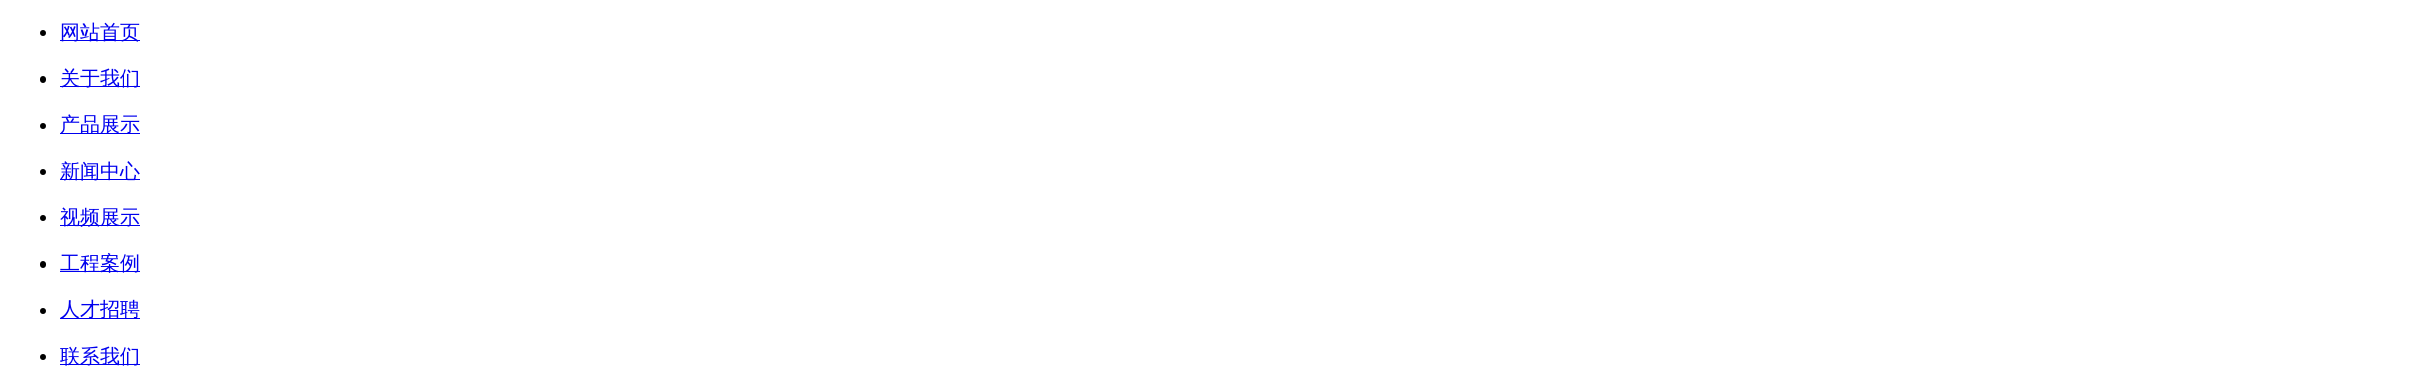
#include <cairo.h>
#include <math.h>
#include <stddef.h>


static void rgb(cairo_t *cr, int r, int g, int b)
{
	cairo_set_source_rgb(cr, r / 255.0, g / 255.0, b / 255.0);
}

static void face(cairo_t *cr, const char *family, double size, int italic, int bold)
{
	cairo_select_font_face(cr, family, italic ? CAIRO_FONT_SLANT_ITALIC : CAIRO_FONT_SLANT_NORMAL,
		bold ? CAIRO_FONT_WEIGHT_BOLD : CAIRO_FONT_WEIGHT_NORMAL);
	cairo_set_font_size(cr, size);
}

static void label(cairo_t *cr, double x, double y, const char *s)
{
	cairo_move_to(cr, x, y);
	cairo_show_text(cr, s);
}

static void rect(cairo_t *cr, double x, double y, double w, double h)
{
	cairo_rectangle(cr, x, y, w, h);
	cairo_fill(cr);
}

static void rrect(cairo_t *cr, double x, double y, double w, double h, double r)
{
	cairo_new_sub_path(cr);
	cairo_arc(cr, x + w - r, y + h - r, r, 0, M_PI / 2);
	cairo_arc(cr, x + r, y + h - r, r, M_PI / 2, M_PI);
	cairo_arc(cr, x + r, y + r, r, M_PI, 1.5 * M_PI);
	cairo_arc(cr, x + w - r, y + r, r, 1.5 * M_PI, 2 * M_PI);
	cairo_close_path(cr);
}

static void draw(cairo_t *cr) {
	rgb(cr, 255, 255, 255);
	cairo_paint(cr);
	rgb(cr, 0, 0, 0);
	cairo_arc(cr, 43, 33, 3, 0, 2 * M_PI);
	cairo_fill(cr);
	rgb(cr, 0, 0, 238);
	rect(cr, 60, 40, 80, 1);
	face(cr, "WenQuanYi Zen Hei Medium", 20, 0, 0);
	label(cr, 60, 39, "网站首页");
	rgb(cr, 0, 0, 0);
	rrect(cr, 40, 76, 6, 7, 3);
	cairo_fill(cr);
	rgb(cr, 0, 0, 238);
	rect(cr, 60, 86, 80, 1);
	label(cr, 60, 85, "关于我们");
	rgb(cr, 0, 0, 0);
	cairo_new_path(cr);
	cairo_arc(cr, 43, 126, 3, 0, 2 * M_PI);
	cairo_fill(cr);
	rgb(cr, 0, 0, 238);
	rect(cr, 60, 133, 80, 1);
	label(cr, 60, 131, "产品展示");
	rgb(cr, 0, 0, 0);
	cairo_new_path(cr);
	cairo_arc(cr, 43, 172, 3, 0, 2 * M_PI);
	cairo_fill(cr);
	rgb(cr, 0, 0, 238);
	rect(cr, 60, 179, 80, 1);
	label(cr, 60, 178, "新闻中心");
	rgb(cr, 0, 0, 0);
	cairo_new_path(cr);
	cairo_arc(cr, 43, 218, 3, 0, 2 * M_PI);
	cairo_fill(cr);
	rgb(cr, 0, 0, 238);
	rect(cr, 60, 225, 80, 1);
	label(cr, 60, 224, "视频展示");
	rgb(cr, 0, 0, 0);
	rrect(cr, 40, 261, 6, 7, 3);
	cairo_fill(cr);
	rgb(cr, 0, 0, 238);
	rect(cr, 60, 271, 80, 1);
	label(cr, 60, 270, "工程案例");
	rgb(cr, 0, 0, 0);
	cairo_new_path(cr);
	cairo_arc(cr, 43, 311, 3, 0, 2 * M_PI);
	cairo_fill(cr);
	rgb(cr, 0, 0, 238);
	rect(cr, 60, 318, 80, 1);
	label(cr, 60, 316, "人才招聘");
	rgb(cr, 0, 0, 0);
	cairo_new_path(cr);
	cairo_arc(cr, 43, 357, 3, 0, 2 * M_PI);
	cairo_fill(cr);
	rgb(cr, 0, 0, 238);
	rect(cr, 60, 364, 80, 1);
	label(cr, 60, 363, "联系我们");
}

int main(void) {
	cairo_surface_t *surface = cairo_image_surface_create(CAIRO_FORMAT_RGB24, 2422, 380);
	cairo_t *cr = cairo_create(surface);
	cairo_font_options_t *options = cairo_font_options_create();
	cairo_font_options_set_hint_metrics(options, CAIRO_HINT_METRICS_OFF);
	cairo_font_options_set_hint_style(options, CAIRO_HINT_STYLE_NONE);
	cairo_set_font_options(cr, options);
	cairo_set_miter_limit(cr, 4);
	draw(cr);
	cairo_surface_write_to_png(surface, "render.png");
	cairo_font_options_destroy(options);
	cairo_destroy(cr);
	cairo_surface_destroy(surface);
	return 0;
}
